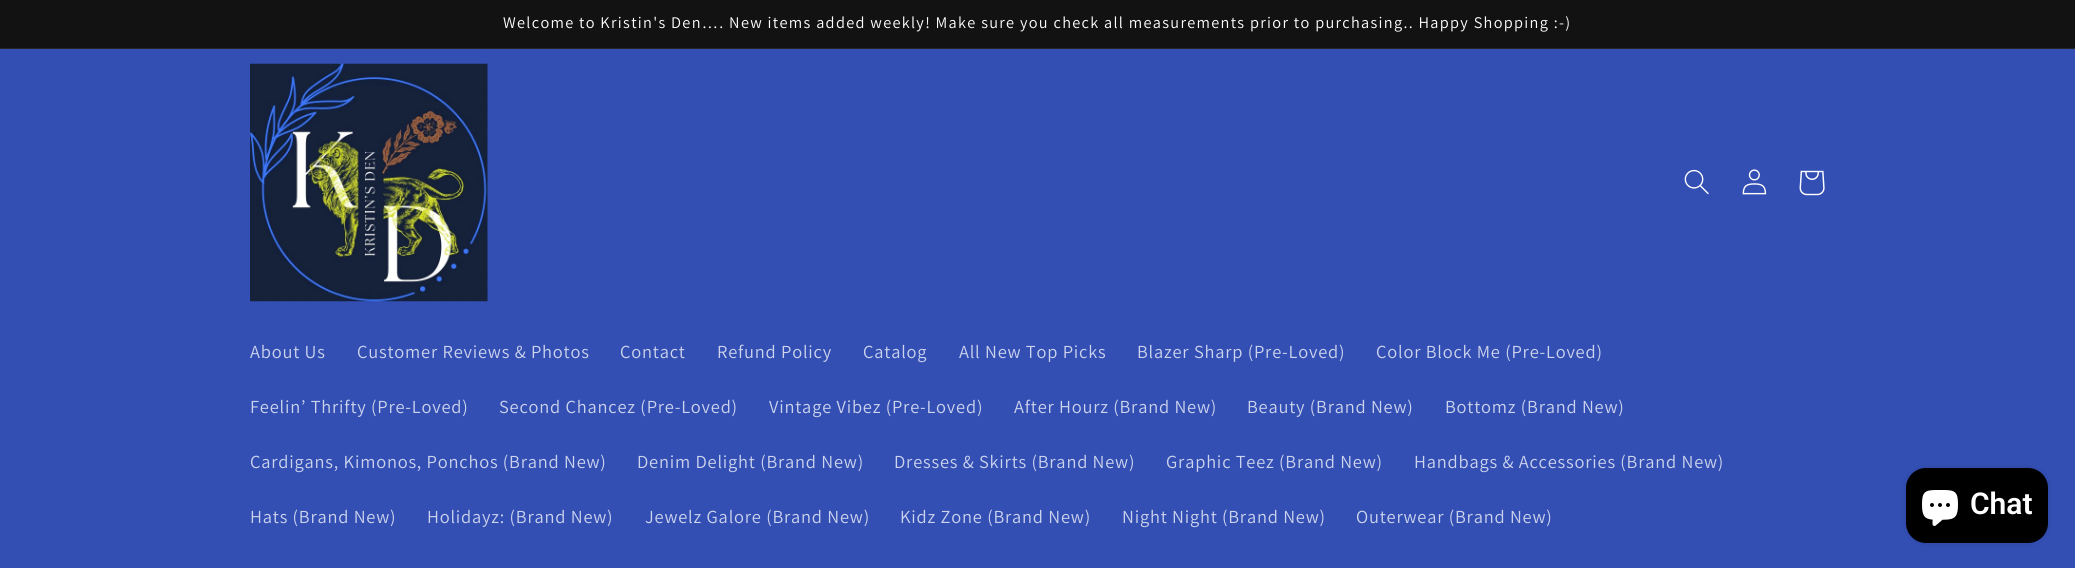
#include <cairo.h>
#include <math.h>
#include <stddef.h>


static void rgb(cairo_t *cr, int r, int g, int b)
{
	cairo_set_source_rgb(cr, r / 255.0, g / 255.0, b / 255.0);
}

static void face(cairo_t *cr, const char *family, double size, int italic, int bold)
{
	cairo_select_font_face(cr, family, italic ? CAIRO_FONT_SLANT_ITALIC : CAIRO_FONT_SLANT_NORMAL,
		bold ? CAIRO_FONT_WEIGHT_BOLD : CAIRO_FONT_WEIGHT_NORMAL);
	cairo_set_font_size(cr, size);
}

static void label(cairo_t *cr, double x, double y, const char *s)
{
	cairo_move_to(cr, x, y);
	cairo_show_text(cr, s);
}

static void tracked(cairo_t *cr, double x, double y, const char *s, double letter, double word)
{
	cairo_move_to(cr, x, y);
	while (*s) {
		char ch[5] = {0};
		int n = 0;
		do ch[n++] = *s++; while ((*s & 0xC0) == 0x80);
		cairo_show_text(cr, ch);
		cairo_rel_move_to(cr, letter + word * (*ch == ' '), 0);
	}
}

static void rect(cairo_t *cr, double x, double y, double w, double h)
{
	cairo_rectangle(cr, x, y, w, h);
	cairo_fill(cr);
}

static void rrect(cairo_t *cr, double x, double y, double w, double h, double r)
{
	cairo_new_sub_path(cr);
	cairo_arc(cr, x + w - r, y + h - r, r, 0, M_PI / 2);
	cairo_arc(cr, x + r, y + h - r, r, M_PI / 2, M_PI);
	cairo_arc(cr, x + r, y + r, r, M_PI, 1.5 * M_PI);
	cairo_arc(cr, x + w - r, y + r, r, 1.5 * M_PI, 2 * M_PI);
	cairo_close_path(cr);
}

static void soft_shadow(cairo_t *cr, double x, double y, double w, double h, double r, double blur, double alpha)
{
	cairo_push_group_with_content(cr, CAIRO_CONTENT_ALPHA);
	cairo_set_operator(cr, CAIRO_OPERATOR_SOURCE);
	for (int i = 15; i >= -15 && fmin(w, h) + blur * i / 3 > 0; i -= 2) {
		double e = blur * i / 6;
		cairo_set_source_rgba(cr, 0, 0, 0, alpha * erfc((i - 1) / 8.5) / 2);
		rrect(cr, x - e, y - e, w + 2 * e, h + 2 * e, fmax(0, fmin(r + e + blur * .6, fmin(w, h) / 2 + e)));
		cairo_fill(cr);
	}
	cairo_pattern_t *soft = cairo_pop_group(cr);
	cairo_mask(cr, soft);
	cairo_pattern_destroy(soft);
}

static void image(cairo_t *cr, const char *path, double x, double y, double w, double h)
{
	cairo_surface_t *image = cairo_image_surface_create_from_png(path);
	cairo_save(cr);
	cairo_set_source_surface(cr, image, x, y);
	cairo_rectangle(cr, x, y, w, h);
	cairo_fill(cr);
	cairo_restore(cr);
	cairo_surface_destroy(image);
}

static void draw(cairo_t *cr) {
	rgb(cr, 51, 79, 180);
	cairo_paint(cr);
	rgb(cr, 18, 18, 18);
	rect(cr, 0, 0, 2075, 48);
	rgb(cr, 37, 37, 37);
	rect(cr, 0, 48, 2075, 1);
	face(cr, "Assistant", 16.25, 0, 0);
	rgb(cr, 255, 255, 255);
	tracked(cr, 503, 28, "Welcome to Kristin's Den…. New items added weekly! Make sure you check all measurements prior to purchasing.. Happy Shopping :-)", 1.31, 0);
	image(cr, "image0.png", 250, 63, 238, 239);
	image(cr, "image1.png", 1684, 169, 25, 26);
	image(cr, "image2.png", 1742, 169, 25, 26);
	image(cr, "image3.png", 1799, 170, 26, 26);
	face(cr, "Assistant", 18.4, 0, 0);
	rgb(cr, 204, 211, 236);
	tracked(cr, 250, 358, "About Us", 0.8, 0);
	tracked(cr, 357, 358, "Customer Reviews & Photos", 0.8, 0);
	tracked(cr, 620, 358, "Contact", 0.8, 0);
	tracked(cr, 717, 358, "Refund Policy", 0.8, 0);
	tracked(cr, 863, 358, "Catalog", 0.8, 0);
	tracked(cr, 959, 358, "All New Top Picks", 0.8, 0);
	tracked(cr, 1137, 358, "Blazer Sharp (Pre-Loved)", 0.8, 0);
	tracked(cr, 1376, 358, "Color Block Me (Pre-Loved)", 0.8, 0);
	tracked(cr, 250, 413, "Feelin’ Thrifty (Pre-Loved)", 0.8, 0);
	tracked(cr, 499, 413, "Second Chancez (Pre-Loved)", 0.8, 0);
	tracked(cr, 769, 413, "Vintage Vibez (Pre-Loved)", 0.8, 0);
	tracked(cr, 1014, 413, "After Hourz (Brand New)", 0.8, 0);
	tracked(cr, 1247, 413, "Beauty (Brand New)", 0.8, 0);
	tracked(cr, 1445, 413, "Bottomz (Brand New)", 0.8, 0);
	tracked(cr, 250, 468, "Cardigans, Kimonos, Ponchos (Brand New)", 0.8, 0);
	tracked(cr, 637, 468, "Denim Delight (Brand New)", 0.8, 0);
	tracked(cr, 894, 468, "Dresses & Skirts (Brand New)", 0.8, 0);
	tracked(cr, 1166, 468, "Graphic Teez (Brand New)", 0.8, 0);
	tracked(cr, 1414, 468, "Handbags & Accessories (Brand New)", 0.8, 0);
	tracked(cr, 250, 523, "Hats (Brand New)", 0.8, 0);
	tracked(cr, 427, 523, "Holidayz: (Brand New)", 0.8, 0);
	tracked(cr, 645, 523, "Jewelz Galore (Brand New)", 0.8, 0);
	tracked(cr, 900, 523, "Kidz Zone (Brand New)", 0.8, 0);
	tracked(cr, 1122, 523, "Night Night (Brand New)", 0.8, 0);
	tracked(cr, 1356, 523, "Outerwear (Brand New)", 0.8, 0);
	rgb(cr, 0, 0, 0);
	soft_shadow(cr, 1906, 468, 142, 75, 20, 3, 0.15);
	rgb(cr, 0, 0, 0);
	rrect(cr, 1906, 468, 142, 75, 20);
	cairo_fill(cr);
	image(cr, "image4.png", 1922, 490, 36, 36);
	face(cr, "Roboto SemiBold", 30, 0, 0);
	rgb(cr, 255, 255, 255);
	label(cr, 1970, 514, "Chat");
}

int main(void) {
	cairo_surface_t *surface = cairo_image_surface_create(CAIRO_FORMAT_RGB24, 2075, 568);
	cairo_t *cr = cairo_create(surface);
	cairo_font_options_t *options = cairo_font_options_create();
	cairo_font_options_set_hint_metrics(options, CAIRO_HINT_METRICS_OFF);
	cairo_font_options_set_hint_style(options, CAIRO_HINT_STYLE_NONE);
	cairo_set_font_options(cr, options);
	cairo_set_miter_limit(cr, 4);
	draw(cr);
	cairo_surface_write_to_png(surface, "render.png");
	cairo_font_options_destroy(options);
	cairo_destroy(cr);
	cairo_surface_destroy(surface);
	return 0;
}
